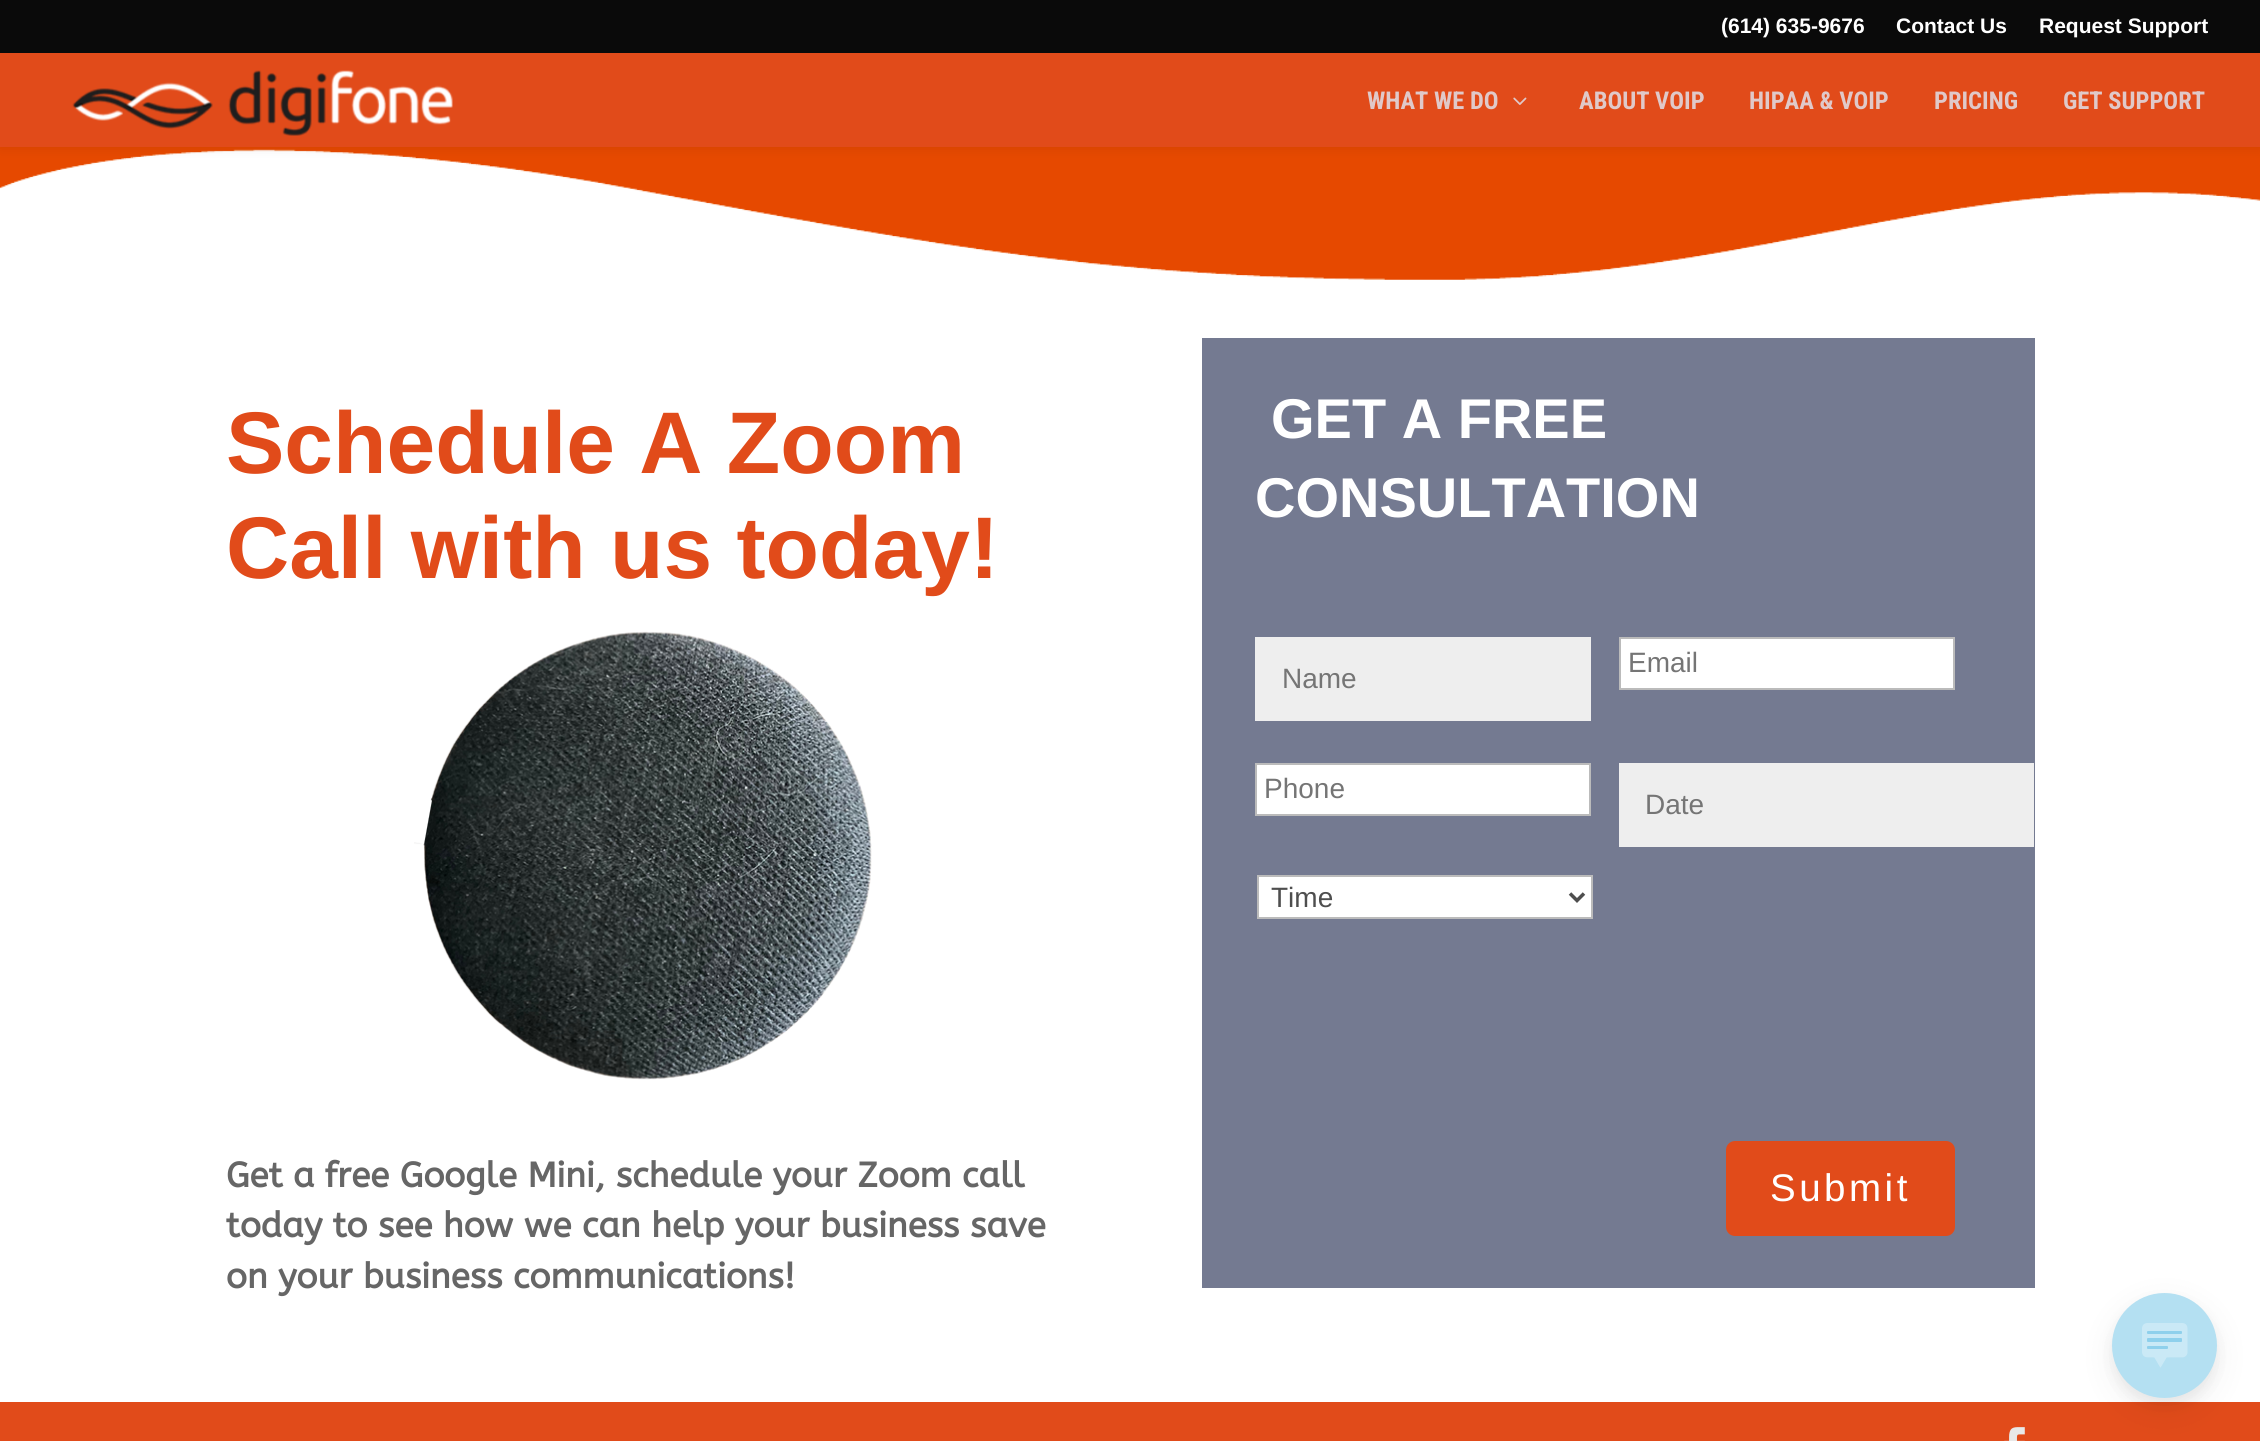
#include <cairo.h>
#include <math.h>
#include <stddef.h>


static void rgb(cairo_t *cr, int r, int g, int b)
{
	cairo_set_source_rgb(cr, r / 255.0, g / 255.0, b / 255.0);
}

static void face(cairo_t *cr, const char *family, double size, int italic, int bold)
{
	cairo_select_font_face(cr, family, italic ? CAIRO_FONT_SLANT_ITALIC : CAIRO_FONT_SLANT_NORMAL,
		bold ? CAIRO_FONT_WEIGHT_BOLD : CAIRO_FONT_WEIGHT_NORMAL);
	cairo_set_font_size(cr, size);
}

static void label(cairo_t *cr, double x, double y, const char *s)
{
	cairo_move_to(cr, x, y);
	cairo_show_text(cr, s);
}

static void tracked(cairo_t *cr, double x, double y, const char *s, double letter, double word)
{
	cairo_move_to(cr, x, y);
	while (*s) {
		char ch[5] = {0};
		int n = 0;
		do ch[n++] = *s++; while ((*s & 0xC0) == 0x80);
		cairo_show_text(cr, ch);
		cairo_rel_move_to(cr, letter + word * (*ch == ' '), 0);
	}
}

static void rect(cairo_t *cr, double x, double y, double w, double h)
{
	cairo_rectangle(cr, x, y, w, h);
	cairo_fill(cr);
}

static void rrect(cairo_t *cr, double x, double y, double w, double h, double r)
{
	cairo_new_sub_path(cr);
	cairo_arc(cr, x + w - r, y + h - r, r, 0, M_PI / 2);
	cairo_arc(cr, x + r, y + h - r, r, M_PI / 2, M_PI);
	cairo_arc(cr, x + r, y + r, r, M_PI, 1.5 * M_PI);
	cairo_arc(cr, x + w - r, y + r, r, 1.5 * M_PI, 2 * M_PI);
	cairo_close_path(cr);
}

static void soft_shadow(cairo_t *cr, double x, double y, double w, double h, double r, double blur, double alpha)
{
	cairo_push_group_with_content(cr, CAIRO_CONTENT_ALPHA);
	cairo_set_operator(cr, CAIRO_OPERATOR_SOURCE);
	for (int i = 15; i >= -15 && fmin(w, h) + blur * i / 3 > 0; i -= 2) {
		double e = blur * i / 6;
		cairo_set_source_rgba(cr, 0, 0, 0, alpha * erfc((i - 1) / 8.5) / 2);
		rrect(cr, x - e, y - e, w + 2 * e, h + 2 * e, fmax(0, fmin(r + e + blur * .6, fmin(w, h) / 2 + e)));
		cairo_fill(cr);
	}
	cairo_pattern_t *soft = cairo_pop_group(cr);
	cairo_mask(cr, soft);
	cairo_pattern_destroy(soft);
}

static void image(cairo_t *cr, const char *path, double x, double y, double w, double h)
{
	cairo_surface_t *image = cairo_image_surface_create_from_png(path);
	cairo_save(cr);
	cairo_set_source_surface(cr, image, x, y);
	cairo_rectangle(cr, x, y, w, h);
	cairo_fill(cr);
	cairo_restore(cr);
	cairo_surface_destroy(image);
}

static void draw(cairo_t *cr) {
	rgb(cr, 255, 255, 255);
	cairo_paint(cr);
	image(cr, "image2.png", 0, 147, 2260, 133);
	rgb(cr, 0, 0, 0);
	soft_shadow(cr, 0, 53, 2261, 94, 0, 6, 0.1);
	rgb(cr, 10, 10, 10);
	rect(cr, 0, 0, 2260, 53);
	face(cr, "Liberation Sans", 21, 0, 1);
	rgb(cr, 255, 255, 255);
	label(cr, 1721, 33, "(614) 635-9676");
	label(cr, 1896, 33, "Contact Us");
	label(cr, 2039, 33, "Request Support");
	rgb(cr, 225, 75, 26);
	rect(cr, 0, 53, 2260, 94);
	image(cr, "image0.png", 72, 70, 381, 66);
	face(cr, "Roboto Condensed", 24.5, 0, 1);
	rgb(cr, 224, 201, 201);
	label(cr, 1367, 109, "WHAT WE DO");
	image(cr, "image1.png", 1513, 97, 14, 8);
	label(cr, 1579, 109, "ABOUT VOIP");
	label(cr, 1749, 109, "HIPAA & VOIP");
	label(cr, 1934, 109, "PRICING");
	label(cr, 2063, 109, "GET SUPPORT");
	face(cr, "Liberation Sans", 87.5, 0, 1);
	rgb(cr, 225, 75, 26);
	label(cr, 226, 473, "Schedule A Zoom");
	label(cr, 226, 578, "Call with us today!");
	image(cr, "image3.png", 414, 631, 458, 449);
	face(cr, "ABeeZee", 35, 0, 1);
	rgb(cr, 102, 102, 102);
	label(cr, 226, 1187, "Get a free Google Mini, schedule your Zoom call");
	label(cr, 226, 1237, "today to see how we can help your business save");
	label(cr, 226, 1288, "on your business communications!");
	rgb(cr, 116, 122, 145);
	rect(cr, 1202, 338, 833, 950);
	face(cr, "Liberation Sans", 56, 0, 1);
	rgb(cr, 255, 255, 255);
	label(cr, 1271, 438, "GET A FREE");
	label(cr, 1255, 517, "CONSULTATION");
	cairo_rectangle(cr, 1620, 638, 334, 51);
	cairo_fill_preserve(cr);
	rgb(cr, 187, 187, 187);
	cairo_stroke(cr);
	face(cr, "Liberation Sans", 28, 0, 0);
	rgb(cr, 117, 117, 117);
	label(cr, 1628, 672, "Email");
	rgb(cr, 238, 238, 238);
	rect(cr, 1255, 637, 336, 84);
	rgb(cr, 117, 117, 117);
	label(cr, 1282, 688, "Name");
	rgb(cr, 255, 255, 255);
	cairo_rectangle(cr, 1256, 764, 334, 51);
	cairo_fill_preserve(cr);
	rgb(cr, 187, 187, 187);
	cairo_stroke(cr);
	rgb(cr, 117, 117, 117);
	label(cr, 1264, 798, "Phone");
	rgb(cr, 238, 238, 238);
	rect(cr, 1619, 763, 415, 84);
	rgb(cr, 117, 117, 117);
	label(cr, 1645, 814, "Date");
	rgb(cr, 255, 255, 255);
	cairo_rectangle(cr, 1258, 876, 334, 42);
	cairo_fill_preserve(cr);
	rgb(cr, 187, 187, 187);
	cairo_stroke(cr);
	cairo_new_path(cr);
	cairo_move_to(cr, 1570, 893.5);
	cairo_line_to(cr, 1577, 900.5);
	cairo_line_to(cr, 1584, 893.5);
	rgb(cr, 78, 78, 78);
	cairo_set_line_width(cr, 3.5);
	cairo_stroke(cr);
	label(cr, 1271, 907, "Time");
	rgb(cr, 225, 75, 26);
	rrect(cr, 1728, 1143, 225, 91, 7);
	cairo_fill_preserve(cr);
	cairo_set_line_width(cr, 4);
	cairo_stroke(cr);
	face(cr, "Liberation Sans", 38.5, 0, 0);
	rgb(cr, 255, 255, 255);
	tracked(cr, 1770, 1201, "Submit", 3.5, 0);
	rgb(cr, 225, 75, 26);
	rect(cr, 0, 1402, 2260, 39);
	image(cr, "image4.png", 2004, 1427, 21, 14);
	rgb(cr, 0, 0, 0);
	soft_shadow(cr, 2112, 1304, 105, 105, 52.5, 17.5, 0.06);
	soft_shadow(cr, 2112, 1300, 105, 105, 52.5, 7, 0.06);
	rgb(cr, 180, 224, 242);
	cairo_arc(cr, 2164.5, 1345.5, 52.5, 0, 2 * M_PI);
	cairo_fill(cr);
	image(cr, "image5.png", 2142, 1323, 46, 45);
}

int main(void) {
	cairo_surface_t *surface = cairo_image_surface_create(CAIRO_FORMAT_RGB24, 2260, 1441);
	cairo_t *cr = cairo_create(surface);
	cairo_font_options_t *options = cairo_font_options_create();
	cairo_font_options_set_hint_metrics(options, CAIRO_HINT_METRICS_OFF);
	cairo_font_options_set_hint_style(options, CAIRO_HINT_STYLE_NONE);
	cairo_set_font_options(cr, options);
	cairo_set_miter_limit(cr, 4);
	draw(cr);
	cairo_surface_write_to_png(surface, "render.png");
	cairo_font_options_destroy(options);
	cairo_destroy(cr);
	cairo_surface_destroy(surface);
	return 0;
}
